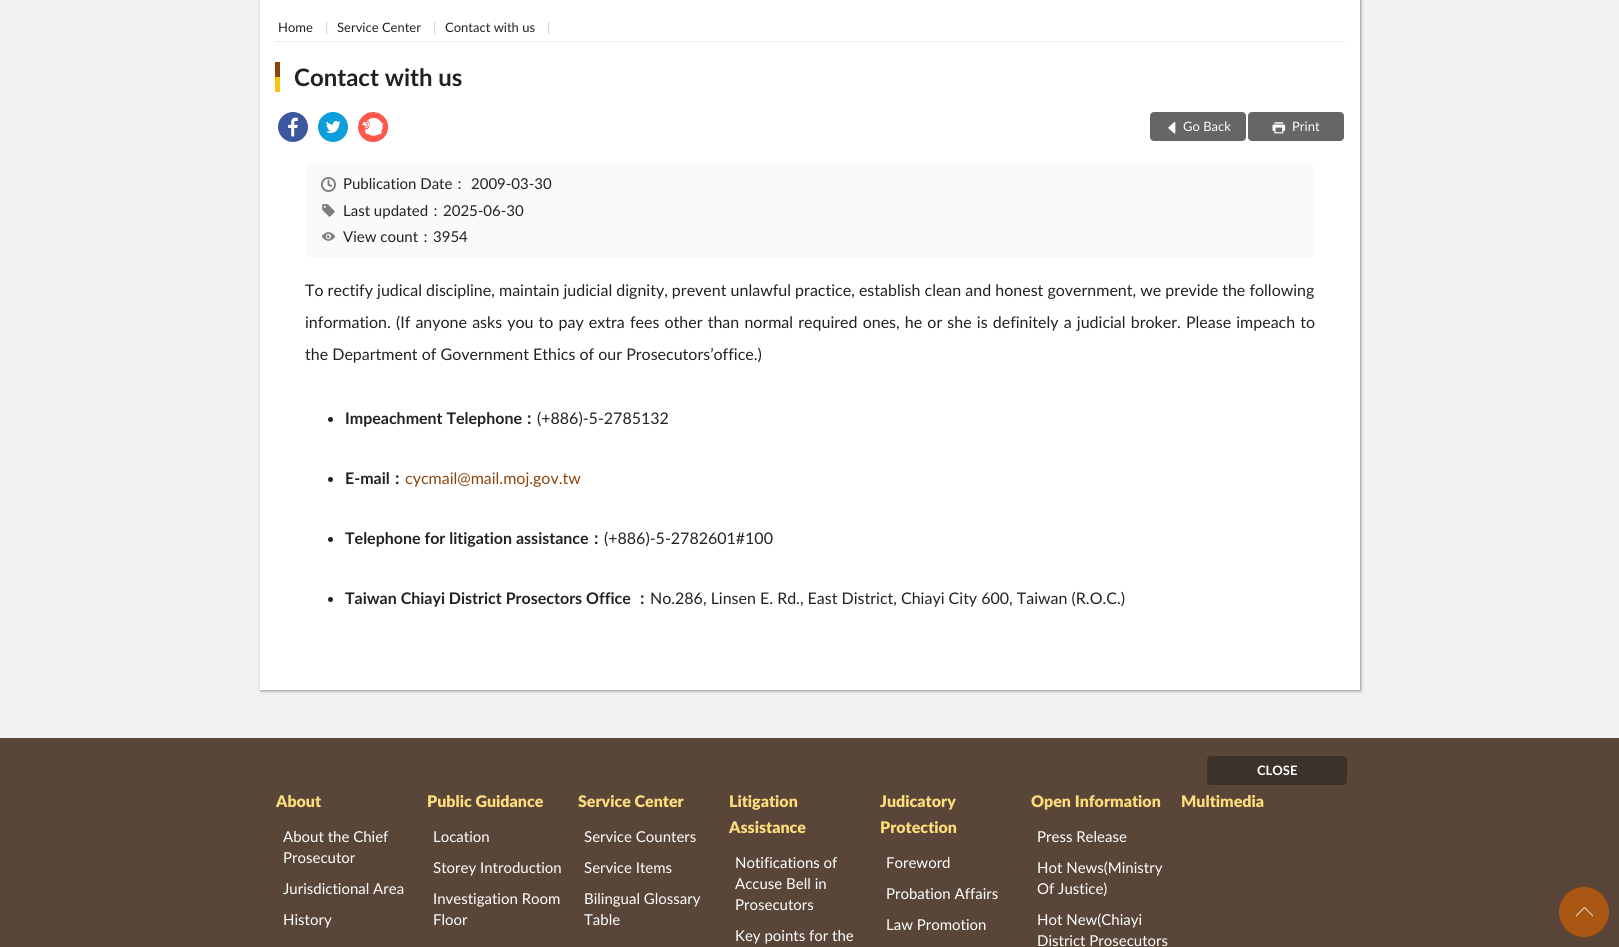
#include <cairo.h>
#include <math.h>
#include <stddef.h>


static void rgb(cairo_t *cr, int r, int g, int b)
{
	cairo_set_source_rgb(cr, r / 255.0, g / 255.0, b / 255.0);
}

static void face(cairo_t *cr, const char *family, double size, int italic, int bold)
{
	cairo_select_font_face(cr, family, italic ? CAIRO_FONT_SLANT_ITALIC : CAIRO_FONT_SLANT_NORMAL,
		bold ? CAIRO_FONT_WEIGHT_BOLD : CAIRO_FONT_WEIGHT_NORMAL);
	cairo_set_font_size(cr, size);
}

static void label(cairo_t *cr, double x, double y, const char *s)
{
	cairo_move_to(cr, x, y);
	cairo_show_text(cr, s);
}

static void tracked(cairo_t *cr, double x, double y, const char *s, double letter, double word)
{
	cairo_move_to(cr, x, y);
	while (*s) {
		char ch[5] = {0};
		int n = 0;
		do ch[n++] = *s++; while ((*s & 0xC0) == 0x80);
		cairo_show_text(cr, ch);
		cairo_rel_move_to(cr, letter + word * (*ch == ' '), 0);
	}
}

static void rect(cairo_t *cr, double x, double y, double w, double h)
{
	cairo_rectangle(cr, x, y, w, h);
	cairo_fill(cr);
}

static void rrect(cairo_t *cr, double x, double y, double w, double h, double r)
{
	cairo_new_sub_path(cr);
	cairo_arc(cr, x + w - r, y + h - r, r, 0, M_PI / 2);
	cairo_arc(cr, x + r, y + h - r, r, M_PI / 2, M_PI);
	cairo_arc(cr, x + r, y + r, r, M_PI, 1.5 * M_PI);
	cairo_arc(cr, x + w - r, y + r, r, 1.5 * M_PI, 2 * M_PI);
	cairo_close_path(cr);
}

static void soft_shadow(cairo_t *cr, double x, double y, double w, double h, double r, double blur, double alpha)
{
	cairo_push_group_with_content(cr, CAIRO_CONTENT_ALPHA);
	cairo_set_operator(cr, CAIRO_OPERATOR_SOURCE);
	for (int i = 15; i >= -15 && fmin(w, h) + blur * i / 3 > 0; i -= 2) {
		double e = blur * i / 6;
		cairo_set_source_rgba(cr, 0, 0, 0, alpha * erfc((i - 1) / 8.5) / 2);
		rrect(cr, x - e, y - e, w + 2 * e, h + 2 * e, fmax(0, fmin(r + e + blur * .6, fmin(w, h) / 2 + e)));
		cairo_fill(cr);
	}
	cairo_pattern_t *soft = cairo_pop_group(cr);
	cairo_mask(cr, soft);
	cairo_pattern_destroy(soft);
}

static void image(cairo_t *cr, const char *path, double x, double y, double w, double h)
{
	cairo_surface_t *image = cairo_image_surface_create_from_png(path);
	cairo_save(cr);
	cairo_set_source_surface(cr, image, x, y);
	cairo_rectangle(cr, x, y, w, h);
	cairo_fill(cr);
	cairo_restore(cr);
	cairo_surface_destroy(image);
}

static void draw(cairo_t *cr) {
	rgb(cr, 241, 241, 241);
	cairo_paint(cr);
	rgb(cr, 0, 0, 0);
	soft_shadow(cr, 261, -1, 1100, 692, 0, 1.5, 0.4);
	rgb(cr, 255, 255, 255);
	rect(cr, 260, 0, 1100, 690);
	rgb(cr, 238, 238, 238);
	rect(cr, 275, 41, 1070, 1);
	face(cr, "Lato", 13, 0, 0);
	rgb(cr, 34, 34, 34);
	label(cr, 278, 32, "Home");
	rgb(cr, 204, 204, 204);
	label(cr, 325, 32, "|");
	rgb(cr, 34, 34, 34);
	label(cr, 337, 32, "Service Center");
	rgb(cr, 204, 204, 204);
	label(cr, 433, 32, "|");
	rgb(cr, 34, 34, 34);
	label(cr, 445, 32, "Contact with us");
	rgb(cr, 204, 204, 204);
	label(cr, 547, 32, "|");
	rgb(cr, 141, 69, 12);
	rect(cr, 275, 62, 5, 15);
	face(cr, "Lato", 24, 0, 1);
	rgb(cr, 34, 34, 34);
	label(cr, 294, 86, "Contact with us");
	rgb(cr, 252, 194, 17);
	rect(cr, 275, 77, 5, 15);
	image(cr, "image0.png", 278, 112, 30, 30);
	image(cr, "image1.png", 318, 112, 30, 30);
	image(cr, "image2.png", 358, 112, 30, 30);
	rgb(cr, 102, 102, 102);
	rrect(cr, 1150, 112, 96, 29, 4);
	cairo_fill(cr);
	image(cr, "image3.png", 1168, 122, 8, 12);
	face(cr, "Lato", 13, 0, 0);
	rgb(cr, 255, 255, 255);
	label(cr, 1183, 131, "Go Back");
	rgb(cr, 102, 102, 102);
	rrect(cr, 1248, 112, 96, 29, 4);
	cairo_fill(cr);
	image(cr, "image4.png", 1272, 122, 14, 12);
	rgb(cr, 255, 255, 255);
	label(cr, 1292, 131, "Print");
	rgb(cr, 250, 250, 250);
	rrect(cr, 305, 163, 1010, 95, 6);
	cairo_fill(cr);
	image(cr, "image5.png", 321, 177, 15, 15);
	face(cr, "Lato", 15, 0, 0);
	rgb(cr, 34, 34, 34);
	label(cr, 343, 189, "Publication Date");
	face(cr, "WenQuanYi Zen Hei Medium", 15, 0, 0);
	label(cr, 452, 189, "：");
	face(cr, "Lato", 15, 0, 0);
	label(cr, 471, 189, "2009-03-30");
	image(cr, "image6.png", 322, 204, 13, 13);
	label(cr, 343, 216, "Last updated");
	face(cr, "WenQuanYi Zen Hei Medium", 15, 0, 0);
	label(cr, 428, 216, "：");
	face(cr, "Lato", 15, 0, 0);
	label(cr, 443, 216, "2025-06-30");
	image(cr, "image7.png", 322, 232, 13, 9);
	label(cr, 343, 242, "View count");
	face(cr, "WenQuanYi Zen Hei Medium", 15, 0, 0);
	label(cr, 418, 242, "：");
	face(cr, "Lato", 15, 0, 0);
	label(cr, 433, 242, "3954");
	face(cr, "Lato", 16, 0, 0);
	label(cr, 305, 296, "To rectify judical discipline, maintain judicial dignity, prevent unlawful practice, establish clean and honest government, we previde the following");
	tracked(cr, 305, 328, "information. (If anyone asks you to pay extra fees other than normal required ones, he or she is definitely a judicial broker. Please impeach to", 0, 1.05);
	label(cr, 305, 360, "the Department of Government Ethics of our Prosecutors’office.)");
	cairo_new_path(cr);
	cairo_arc(cr, 330.5, 419.5, 2.5, 0, 2 * M_PI);
	cairo_fill(cr);
	face(cr, "Lato", 16, 0, 1);
	label(cr, 345, 424, "Impeachment Telephone");
	face(cr, "WenQuanYi Zen Hei", 16, 0, 1);
	label(cr, 521, 424, "：");
	face(cr, "Lato", 16, 0, 0);
	label(cr, 537, 424, "(+886)-5-2785132");
	cairo_new_path(cr);
	cairo_arc(cr, 330.5, 479.5, 2.5, 0, 2 * M_PI);
	cairo_fill(cr);
	face(cr, "Lato", 16, 0, 1);
	label(cr, 345, 484, "E-mail");
	face(cr, "WenQuanYi Zen Hei", 16, 0, 1);
	label(cr, 389, 484, "：");
	face(cr, "Lato", 16, 0, 0);
	rgb(cr, 141, 69, 12);
	label(cr, 405, 484, "cycmail@mail.moj.gov.tw");
	rgb(cr, 34, 34, 34);
	cairo_new_path(cr);
	cairo_arc(cr, 330.5, 539.5, 2.5, 0, 2 * M_PI);
	cairo_fill(cr);
	face(cr, "Lato", 16, 0, 1);
	label(cr, 345, 544, "Telephone for litigation assistance");
	face(cr, "WenQuanYi Zen Hei", 16, 0, 1);
	label(cr, 588, 544, "：");
	face(cr, "Lato", 16, 0, 0);
	label(cr, 604, 544, "(+886)-5-2782601#100");
	cairo_new_path(cr);
	cairo_arc(cr, 330.5, 599.5, 2.5, 0, 2 * M_PI);
	cairo_fill(cr);
	face(cr, "Lato", 16, 0, 1);
	label(cr, 345, 604, "Taiwan Chiayi District Prosectors Office");
	face(cr, "WenQuanYi Zen Hei", 16, 0, 1);
	label(cr, 634, 604, "：");
	face(cr, "Lato", 16, 0, 0);
	label(cr, 650, 604, "No.286, Linsen E. Rd., East District, Chiayi City 600, Taiwan (R.O.C.)");
	rgb(cr, 89, 70, 57);
	rect(cr, 0, 738, 1619, 209);
	rgb(cr, 61, 50, 41);
	rrect(cr, 1207, 756, 140, 29, 4);
	cairo_fill(cr);
	face(cr, "Lato", 13, 0, 1);
	rgb(cr, 255, 255, 255);
	label(cr, 1257, 775, "CLOSE");
	face(cr, "Lato ExtraBold", 16, 0, 0);
	rgb(cr, 253, 221, 123);
	label(cr, 276, 807, "About");
	face(cr, "Lato", 15, 0, 0);
	rgb(cr, 255, 255, 255);
	label(cr, 283, 842, "About the Chief");
	label(cr, 283, 863, "Prosecutor");
	label(cr, 283, 894, "Jurisdictional Area");
	label(cr, 283, 925, "History");
	face(cr, "Lato ExtraBold", 16, 0, 0);
	rgb(cr, 253, 221, 123);
	label(cr, 427, 807, "Public Guidance");
	face(cr, "Lato", 15, 0, 0);
	rgb(cr, 255, 255, 255);
	label(cr, 433, 842, "Location");
	label(cr, 433, 873, "Storey Introduction");
	label(cr, 433, 904, "Investigation Room");
	label(cr, 433, 925, "Floor");
	face(cr, "Lato ExtraBold", 16, 0, 0);
	rgb(cr, 253, 221, 123);
	label(cr, 578, 807, "Service Center");
	face(cr, "Lato", 15, 0, 0);
	rgb(cr, 255, 255, 255);
	label(cr, 584, 842, "Service Counters");
	label(cr, 584, 873, "Service Items");
	label(cr, 584, 904, "Bilingual Glossary");
	label(cr, 584, 925, "Table");
	face(cr, "Lato ExtraBold", 16, 0, 0);
	rgb(cr, 253, 221, 123);
	label(cr, 729, 807, "Litigation");
	label(cr, 729, 833, "Assistance");
	face(cr, "Lato", 15, 0, 0);
	rgb(cr, 255, 255, 255);
	label(cr, 735, 868, "Notifications of");
	label(cr, 735, 889, "Accuse Bell in");
	label(cr, 735, 910, "Prosecutors");
	label(cr, 735, 941, "Key points for the");
	face(cr, "Lato ExtraBold", 16, 0, 0);
	rgb(cr, 253, 221, 123);
	label(cr, 880, 807, "Judicatory");
	label(cr, 880, 833, "Protection");
	face(cr, "Lato", 15, 0, 0);
	rgb(cr, 255, 255, 255);
	label(cr, 886, 868, "Foreword");
	label(cr, 886, 899, "Probation Affairs");
	label(cr, 886, 930, "Law Promotion");
	face(cr, "Lato ExtraBold", 16, 0, 0);
	rgb(cr, 253, 221, 123);
	label(cr, 1031, 807, "Open Information");
	face(cr, "Lato", 15, 0, 0);
	rgb(cr, 255, 255, 255);
	label(cr, 1037, 842, "Press Release");
	label(cr, 1037, 873, "Hot News(Ministry");
	label(cr, 1037, 894, "Of Justice)");
	label(cr, 1037, 925, "Hot New(Chiayi");
	label(cr, 1037, 946, "District Prosecutors");
	face(cr, "Lato ExtraBold", 16, 0, 0);
	rgb(cr, 253, 221, 123);
	label(cr, 1181, 807, "Multimedia");
	rgb(cr, 169, 87, 19);
	cairo_new_path(cr);
	cairo_arc(cr, 1584, 912, 25, 0, 2 * M_PI);
	cairo_fill(cr);
	image(cr, "image8.png", 1576, 907, 17, 10);
}

int main(void) {
	cairo_surface_t *surface = cairo_image_surface_create(CAIRO_FORMAT_RGB24, 1619, 947);
	cairo_t *cr = cairo_create(surface);
	cairo_font_options_t *options = cairo_font_options_create();
	cairo_font_options_set_hint_metrics(options, CAIRO_HINT_METRICS_OFF);
	cairo_font_options_set_hint_style(options, CAIRO_HINT_STYLE_NONE);
	cairo_set_font_options(cr, options);
	cairo_set_miter_limit(cr, 4);
	draw(cr);
	cairo_surface_write_to_png(surface, "render.png");
	cairo_font_options_destroy(options);
	cairo_destroy(cr);
	cairo_surface_destroy(surface);
	return 0;
}
